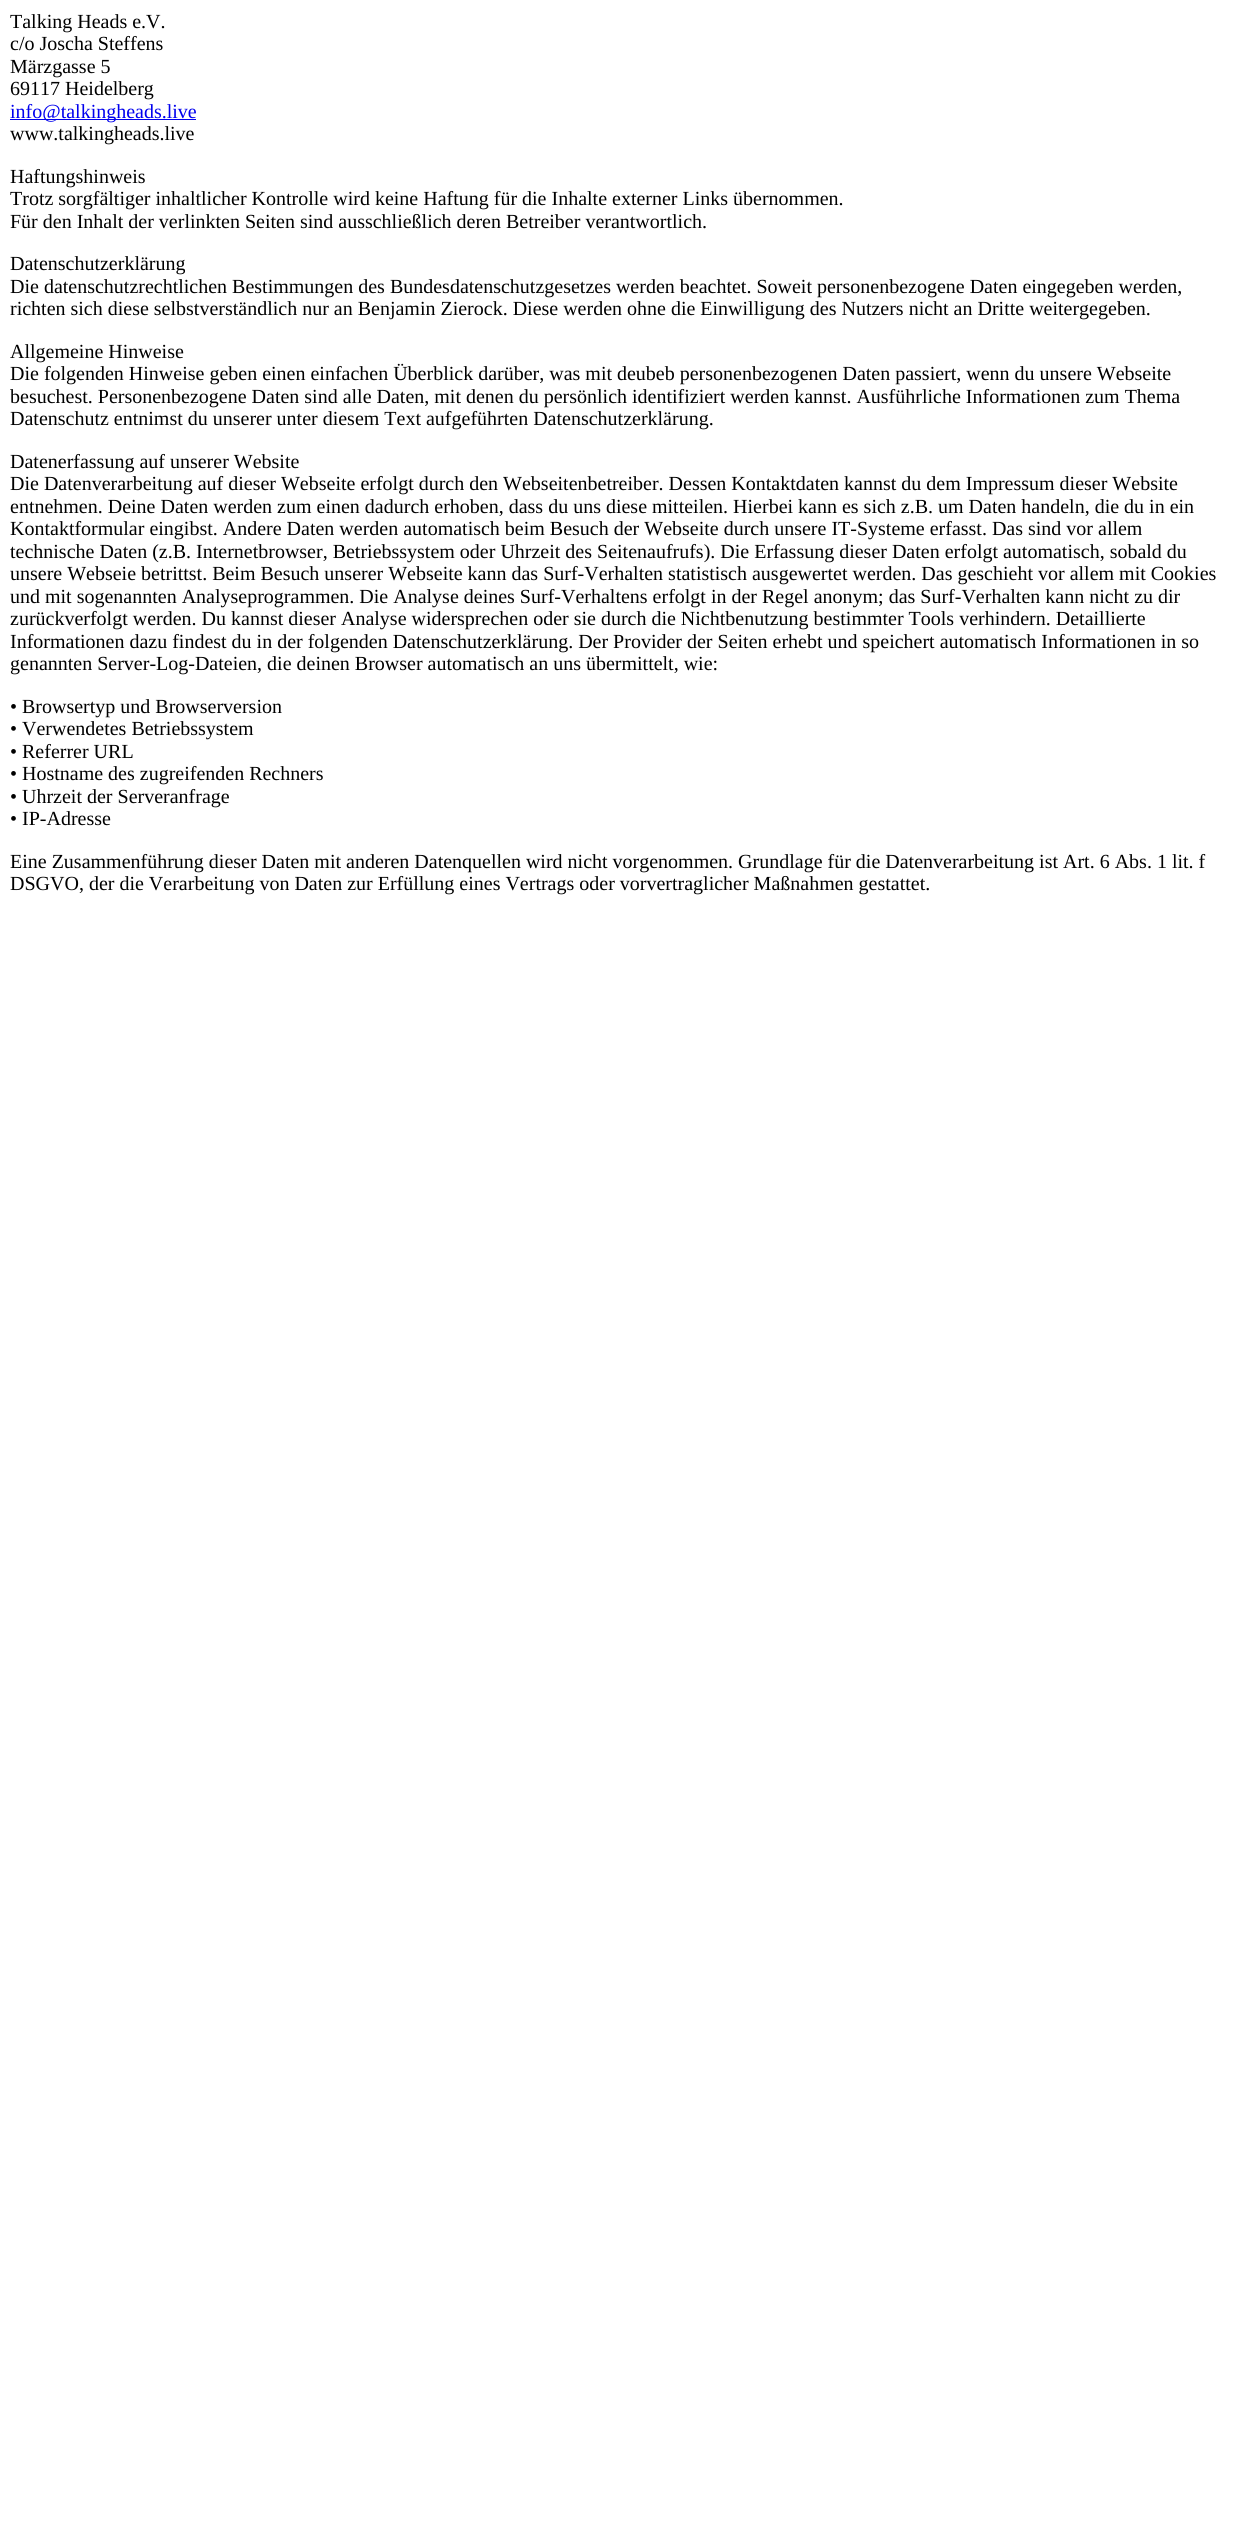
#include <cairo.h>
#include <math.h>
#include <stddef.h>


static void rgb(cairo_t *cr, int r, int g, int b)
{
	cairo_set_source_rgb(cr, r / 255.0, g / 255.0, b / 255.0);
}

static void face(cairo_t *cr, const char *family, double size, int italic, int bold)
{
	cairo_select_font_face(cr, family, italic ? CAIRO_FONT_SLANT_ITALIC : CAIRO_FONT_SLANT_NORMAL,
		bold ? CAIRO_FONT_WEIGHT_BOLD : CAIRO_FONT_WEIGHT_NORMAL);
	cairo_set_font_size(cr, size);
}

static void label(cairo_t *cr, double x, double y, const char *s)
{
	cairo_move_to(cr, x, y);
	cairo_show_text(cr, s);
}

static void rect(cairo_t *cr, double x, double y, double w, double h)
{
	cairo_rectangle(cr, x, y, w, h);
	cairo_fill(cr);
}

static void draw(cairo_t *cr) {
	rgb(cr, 255, 255, 255);
	cairo_paint(cr);
	face(cr, "Liberation Serif", 20, 0, 0);
	rgb(cr, 0, 0, 0);
	label(cr, 10, 28, "Talking Heads e.V.");
	label(cr, 10, 50, "c/o Joscha Steffens");
	label(cr, 10, 73, "Märzgasse 5");
	label(cr, 10, 95, "69117 Heidelberg");
	rgb(cr, 0, 0, 238);
	rect(cr, 10, 119, 186, 1);
	label(cr, 10, 118, "info@talkingheads.live");
	rgb(cr, 0, 0, 0);
	label(cr, 10, 140, "www.talkingheads.live");
	label(cr, 10, 183, "Haftungshinweis");
	label(cr, 10, 205, "Trotz sorgfältiger inhaltlicher Kontrolle wird keine Haftung für die Inhalte externer Links übernommen.");
	label(cr, 10, 228, "Für den Inhalt der verlinkten Seiten sind ausschließlich deren Betreiber verantwortlich.");
	label(cr, 10, 270, "Datenschutzerklärung");
	label(cr, 10, 293, "Die datenschutzrechtlichen Bestimmungen des Bundesdatenschutzgesetzes werden beachtet. Soweit personenbezogene Daten eingegeben werden,");
	label(cr, 10, 315, "richten sich diese selbstverständlich nur an Benjamin Zierock. Diese werden ohne die Einwilligung des Nutzers nicht an Dritte weitergegeben.");
	label(cr, 10, 358, "Allgemeine Hinweise");
	label(cr, 10, 380, "Die folgenden Hinweise geben einen einfachen Überblick darüber, was mit deubeb personenbezogenen Daten passiert, wenn du unsere Webseite");
	label(cr, 10, 403, "besuchest. Personenbezogene Daten sind alle Daten, mit denen du persönlich identifiziert werden kannst. Ausführliche Informationen zum Thema");
	label(cr, 10, 425, "Datenschutz entnimst du unserer unter diesem Text aufgeführten Datenschutzerklärung.");
	label(cr, 10, 468, "Datenerfassung auf unserer Website");
	label(cr, 10, 490, "Die Datenverarbeitung auf dieser Webseite erfolgt durch den Webseitenbetreiber. Dessen Kontaktdaten kannst du dem Impressum dieser Website");
	label(cr, 10, 513, "entnehmen. Deine Daten werden zum einen dadurch erhoben, dass du uns diese mitteilen. Hierbei kann es sich z.B. um Daten handeln, die du in ein");
	label(cr, 10, 535, "Kontaktformular eingibst. Andere Daten werden automatisch beim Besuch der Webseite durch unsere IT-Systeme erfasst. Das sind vor allem");
	label(cr, 10, 558, "technische Daten (z.B. Internetbrowser, Betriebssystem oder Uhrzeit des Seitenaufrufs). Die Erfassung dieser Daten erfolgt automatisch, sobald du");
	label(cr, 10, 580, "unsere Webseie betrittst. Beim Besuch unserer Webseite kann das Surf-Verhalten statistisch ausgewertet werden. Das geschieht vor allem mit Cookies");
	label(cr, 10, 603, "und mit sogenannten Analyseprogrammen. Die Analyse deines Surf-Verhaltens erfolgt in der Regel anonym; das Surf-Verhalten kann nicht zu dir");
	label(cr, 10, 625, "zurückverfolgt werden. Du kannst dieser Analyse widersprechen oder sie durch die Nichtbenutzung bestimmter Tools verhindern. Detaillierte");
	label(cr, 10, 648, "Informationen dazu findest du in der folgenden Datenschutzerklärung. Der Provider der Seiten erhebt und speichert automatisch Informationen in so");
	label(cr, 10, 670, "genannten Server-Log-Dateien, die deinen Browser automatisch an uns übermittelt, wie:");
	label(cr, 10, 713, "• Browsertyp und Browserversion");
	label(cr, 10, 735, "• Verwendetes Betriebssystem");
	label(cr, 10, 758, "• Referrer URL");
	label(cr, 10, 780, "• Hostname des zugreifenden Rechners");
	label(cr, 10, 803, "• Uhrzeit der Serveranfrage");
	label(cr, 10, 825, "• IP-Adresse");
	label(cr, 10, 868, "Eine Zusammenführung dieser Daten mit anderen Datenquellen wird nicht vorgenommen. Grundlage für die Datenverarbeitung ist Art. 6 Abs. 1 lit. f");
	label(cr, 10, 890, "DSGVO, der die Verarbeitung von Daten zur Erfüllung eines Vertrags oder vorvertraglicher Maßnahmen gestattet.");
}

int main(void) {
	cairo_surface_t *surface = cairo_image_surface_create(CAIRO_FORMAT_RGB24, 1238, 2532);
	cairo_t *cr = cairo_create(surface);
	cairo_font_options_t *options = cairo_font_options_create();
	cairo_font_options_set_hint_metrics(options, CAIRO_HINT_METRICS_OFF);
	cairo_font_options_set_hint_style(options, CAIRO_HINT_STYLE_NONE);
	cairo_set_font_options(cr, options);
	cairo_set_miter_limit(cr, 4);
	draw(cr);
	cairo_surface_write_to_png(surface, "render.png");
	cairo_font_options_destroy(options);
	cairo_destroy(cr);
	cairo_surface_destroy(surface);
	return 0;
}
